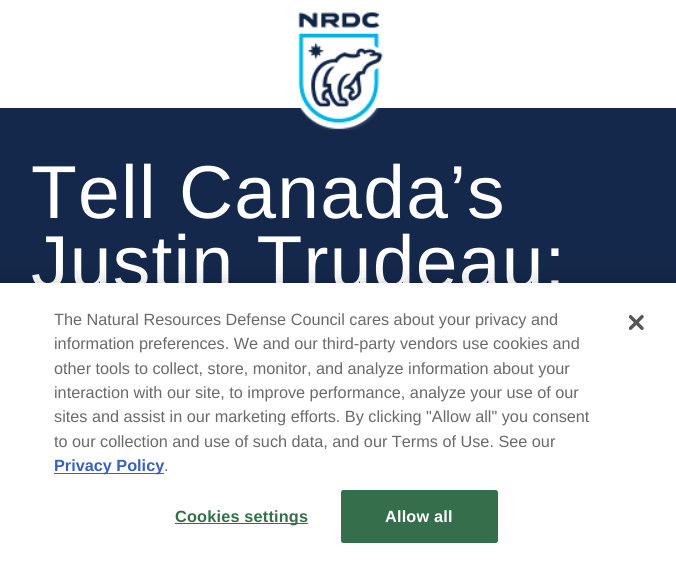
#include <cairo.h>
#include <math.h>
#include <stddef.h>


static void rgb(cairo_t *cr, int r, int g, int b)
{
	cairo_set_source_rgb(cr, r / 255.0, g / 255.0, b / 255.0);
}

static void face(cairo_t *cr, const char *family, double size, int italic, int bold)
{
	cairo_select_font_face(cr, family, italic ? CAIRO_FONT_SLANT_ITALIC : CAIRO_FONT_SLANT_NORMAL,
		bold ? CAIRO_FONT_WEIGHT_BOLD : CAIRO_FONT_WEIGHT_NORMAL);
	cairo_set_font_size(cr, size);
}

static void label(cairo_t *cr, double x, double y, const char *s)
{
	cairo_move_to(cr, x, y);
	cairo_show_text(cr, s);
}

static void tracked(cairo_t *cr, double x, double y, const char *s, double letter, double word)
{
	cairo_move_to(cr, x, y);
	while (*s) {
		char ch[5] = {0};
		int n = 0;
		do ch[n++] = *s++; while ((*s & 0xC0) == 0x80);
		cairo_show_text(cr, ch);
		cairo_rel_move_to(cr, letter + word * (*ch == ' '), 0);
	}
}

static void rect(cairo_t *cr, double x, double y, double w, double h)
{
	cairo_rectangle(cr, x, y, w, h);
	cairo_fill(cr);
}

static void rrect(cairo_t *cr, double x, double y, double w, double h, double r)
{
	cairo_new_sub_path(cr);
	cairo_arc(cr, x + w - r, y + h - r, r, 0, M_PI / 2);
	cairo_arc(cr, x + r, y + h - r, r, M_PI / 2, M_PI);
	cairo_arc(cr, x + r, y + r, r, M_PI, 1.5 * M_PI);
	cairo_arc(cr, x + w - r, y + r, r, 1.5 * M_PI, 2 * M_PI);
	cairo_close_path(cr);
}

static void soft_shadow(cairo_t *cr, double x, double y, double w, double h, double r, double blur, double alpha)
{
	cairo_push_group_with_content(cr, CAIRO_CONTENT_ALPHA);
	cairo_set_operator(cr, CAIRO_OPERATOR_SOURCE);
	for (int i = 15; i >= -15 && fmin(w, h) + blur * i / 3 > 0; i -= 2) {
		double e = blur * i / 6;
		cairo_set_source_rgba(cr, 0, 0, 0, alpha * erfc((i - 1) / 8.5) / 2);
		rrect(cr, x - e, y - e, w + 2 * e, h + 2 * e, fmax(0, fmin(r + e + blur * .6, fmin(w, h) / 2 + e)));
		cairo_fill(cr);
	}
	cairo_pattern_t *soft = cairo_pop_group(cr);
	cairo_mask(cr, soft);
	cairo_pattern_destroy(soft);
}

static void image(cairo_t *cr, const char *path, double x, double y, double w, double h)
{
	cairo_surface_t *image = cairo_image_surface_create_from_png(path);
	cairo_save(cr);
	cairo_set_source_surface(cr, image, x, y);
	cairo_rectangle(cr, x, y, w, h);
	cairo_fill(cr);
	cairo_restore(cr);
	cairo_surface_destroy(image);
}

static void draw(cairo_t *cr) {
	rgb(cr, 255, 255, 255);
	cairo_paint(cr);
	rgb(cr, 20, 40, 75);
	rect(cr, 0, 108, 676, 175);
	image(cr, "image0.png", 298, 12, 85, 118);
	face(cr, "Liberation Sans", 75, 0, 0);
	rgb(cr, 255, 255, 255);
	tracked(cr, 31, 218, "Tell Canada’s", 1.25, 0);
	tracked(cr, 31, 288, "Justin Trudeau:", 1.25, 0);
	rgb(cr, 0, 0, 0);
	soft_shadow(cr, 0, 283, 676, 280, 0, 11, 0.2);
	rgb(cr, 255, 255, 255);
	rect(cr, 0, 283, 676, 279);
	face(cr, "Liberation Sans", 16.25, 0, 0);
	rgb(cr, 105, 105, 105);
	label(cr, 54, 325, "The Natural Resources Defense Council cares about your privacy and");
	label(cr, 54, 349, "information preferences. We and our third-party vendors use cookies and");
	label(cr, 54, 374, "other tools to collect, store, monitor, and analyze information about your");
	label(cr, 54, 398, "interaction with our site, to improve performance, analyze your use of our");
	label(cr, 54, 422, "sites and assist in our marketing efforts. By clicking \"Allow all\" you consent");
	label(cr, 54, 447, "to our collection and use of such data, and our Terms of Use. See our");
	rgb(cr, 56, 96, 190);
	rect(cr, 54, 473, 110, 1);
	face(cr, "Liberation Sans", 16.25, 0, 1);
	label(cr, 54, 471, "Privacy Policy");
	face(cr, "Liberation Sans", 16.25, 0, 0);
	rgb(cr, 105, 105, 105);
	label(cr, 164, 471, ".");
	rgb(cr, 52, 110, 74);
	rect(cr, 175, 523, 133, 1);
	face(cr, "Liberation Sans", 16.25, 0, 1);
	tracked(cr, 175, 522, "Cookies settings", 0.2, 0);
	rrect(cr, 341.5, 490.5, 156, 52, 2);
	cairo_fill_preserve(cr);
	cairo_set_line_width(cr, 1);
	cairo_stroke(cr);
	rgb(cr, 255, 255, 255);
	tracked(cr, 385, 522, "Allow all", 0.2, 0);
	image(cr, "image1.png", 629, 315, 15, 15);
}

int main(void) {
	cairo_surface_t *surface = cairo_image_surface_create(CAIRO_FORMAT_RGB24, 676, 562);
	cairo_t *cr = cairo_create(surface);
	cairo_font_options_t *options = cairo_font_options_create();
	cairo_font_options_set_hint_metrics(options, CAIRO_HINT_METRICS_OFF);
	cairo_font_options_set_hint_style(options, CAIRO_HINT_STYLE_NONE);
	cairo_set_font_options(cr, options);
	cairo_set_miter_limit(cr, 4);
	draw(cr);
	cairo_surface_write_to_png(surface, "render.png");
	cairo_font_options_destroy(options);
	cairo_destroy(cr);
	cairo_surface_destroy(surface);
	return 0;
}
